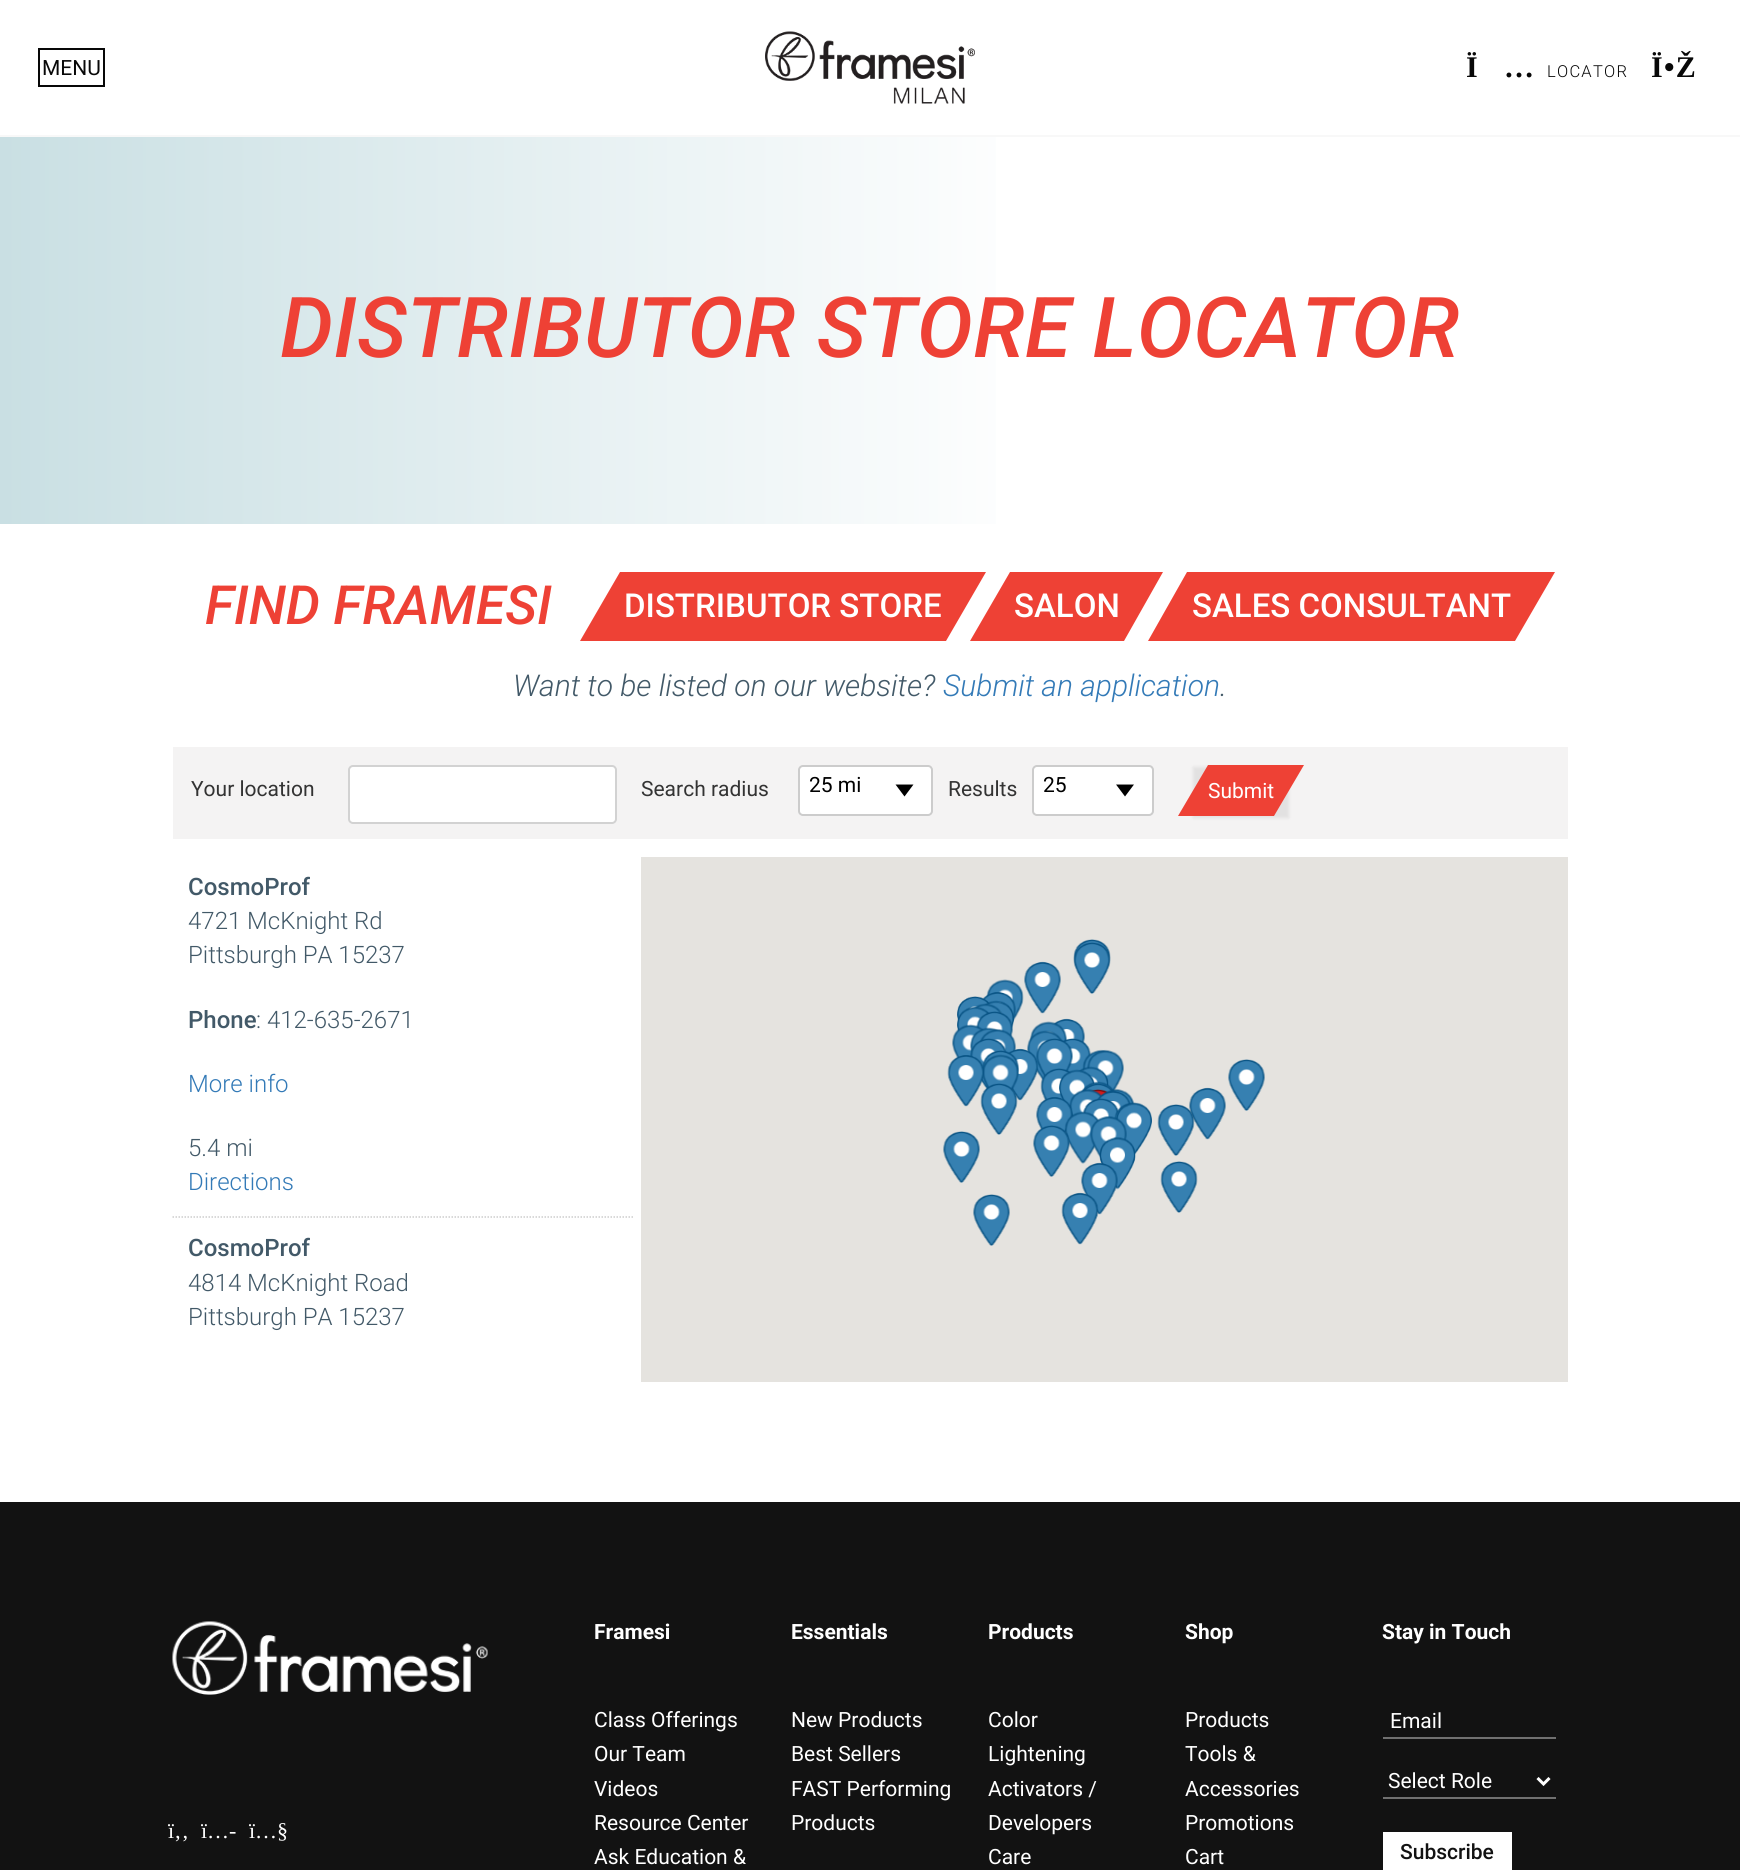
#include <cairo.h>
#include <math.h>
#include <stddef.h>


static void rgb(cairo_t *cr, int r, int g, int b)
{
	cairo_set_source_rgb(cr, r / 255.0, g / 255.0, b / 255.0);
}

static void face(cairo_t *cr, const char *family, double size, int italic, int bold)
{
	cairo_select_font_face(cr, family, italic ? CAIRO_FONT_SLANT_ITALIC : CAIRO_FONT_SLANT_NORMAL,
		bold ? CAIRO_FONT_WEIGHT_BOLD : CAIRO_FONT_WEIGHT_NORMAL);
	cairo_set_font_size(cr, size);
}

static void label(cairo_t *cr, double x, double y, const char *s)
{
	cairo_move_to(cr, x, y);
	cairo_show_text(cr, s);
}

static void tracked(cairo_t *cr, double x, double y, const char *s, double letter, double word)
{
	cairo_move_to(cr, x, y);
	while (*s) {
		char ch[5] = {0};
		int n = 0;
		do ch[n++] = *s++; while ((*s & 0xC0) == 0x80);
		cairo_show_text(cr, ch);
		cairo_rel_move_to(cr, letter + word * (*ch == ' '), 0);
	}
}

static void rect(cairo_t *cr, double x, double y, double w, double h)
{
	cairo_rectangle(cr, x, y, w, h);
	cairo_fill(cr);
}

static void rrect(cairo_t *cr, double x, double y, double w, double h, double r)
{
	cairo_new_sub_path(cr);
	cairo_arc(cr, x + w - r, y + h - r, r, 0, M_PI / 2);
	cairo_arc(cr, x + r, y + h - r, r, M_PI / 2, M_PI);
	cairo_arc(cr, x + r, y + r, r, M_PI, 1.5 * M_PI);
	cairo_arc(cr, x + w - r, y + r, r, 1.5 * M_PI, 2 * M_PI);
	cairo_close_path(cr);
}

static void soft_shadow(cairo_t *cr, double x, double y, double w, double h, double r, double blur, double alpha)
{
	cairo_push_group_with_content(cr, CAIRO_CONTENT_ALPHA);
	cairo_set_operator(cr, CAIRO_OPERATOR_SOURCE);
	for (int i = 15; i >= -15 && fmin(w, h) + blur * i / 3 > 0; i -= 2) {
		double e = blur * i / 6;
		cairo_set_source_rgba(cr, 0, 0, 0, alpha * erfc((i - 1) / 8.5) / 2);
		rrect(cr, x - e, y - e, w + 2 * e, h + 2 * e, fmax(0, fmin(r + e + blur * .6, fmin(w, h) / 2 + e)));
		cairo_fill(cr);
	}
	cairo_pattern_t *soft = cairo_pop_group(cr);
	cairo_mask(cr, soft);
	cairo_pattern_destroy(soft);
}

static void image(cairo_t *cr, const char *path, double x, double y, double w, double h)
{
	cairo_surface_t *image = cairo_image_surface_create_from_png(path);
	cairo_save(cr);
	cairo_set_source_surface(cr, image, x, y);
	cairo_rectangle(cr, x, y, w, h);
	cairo_fill(cr);
	cairo_restore(cr);
	cairo_surface_destroy(image);
}

static void draw(cairo_t *cr) {
	cairo_pattern_t *gradient;
	rgb(cr, 255, 255, 255);
	cairo_paint(cr);
	cairo_rectangle(cr, 39, 49, 65, 37);
	rgb(cr, 8, 8, 8);
	cairo_stroke(cr);
	face(cr, "Roboto", 21, 0, 0);
	label(cr, 42, 75, "MENU");
	image(cr, "image0.png", 765, 31, 210, 73);
	face(cr, "Liberation Serif", 30, 0, 1);
	tracked(cr, 1466, 77, "Ï", 1.25, 0);
	tracked(cr, 1504, 77, "…", 1.25, 0);
	face(cr, "Roboto Light", 16.5, 0, 0);
	tracked(cr, 1547, 77, "LOCATOR", 1.25, 0);
	face(cr, "Liberation Serif", 30, 0, 1);
	tracked(cr, 1651, 77, "Ï•Ž", 1.25, 0);
	rgb(cr, 248, 248, 248);
	rect(cr, 0, 135, 1740, 2);
	gradient = cairo_pattern_create_linear(0, 329, 1740, 329);
	cairo_pattern_add_color_stop_rgba(gradient, 0, 0.788, 0.875, 0.89, 1);
	cairo_pattern_add_color_stop_rgba(gradient, 0.6, 1, 1, 1, 1);
	cairo_set_source(cr, gradient);
	cairo_pattern_destroy(gradient);
	rect(cr, 0, 137, 996, 387);
	face(cr, "Roboto Medium", 84, 1, 0);
	rgb(cr, 238, 65, 53);
	tracked(cr, 280, 357, "DISTRIBUTOR STORE LOCATOR", 0.4, 0);
	face(cr, "Roboto Medium", 54, 1, 0);
	label(cr, 205, 624, "FIND FRAMESI");
	cairo_new_path(cr);
	cairo_move_to(cr, 620, 572);
	cairo_line_to(cr, 986, 572);
	cairo_line_to(cr, 946, 641);
	cairo_line_to(cr, 580, 641);
	cairo_close_path(cr);
	cairo_fill(cr);
	face(cr, "Roboto Medium", 33, 0, 0);
	rgb(cr, 255, 255, 255);
	label(cr, 624, 617, "DISTRIBUTOR STORE");
	rgb(cr, 238, 65, 53);
	cairo_new_path(cr);
	cairo_move_to(cr, 1010, 572);
	cairo_line_to(cr, 1163, 572);
	cairo_line_to(cr, 1124, 641);
	cairo_line_to(cr, 970, 641);
	cairo_close_path(cr);
	cairo_fill(cr);
	rgb(cr, 255, 255, 255);
	label(cr, 1014, 617, "SALON");
	rgb(cr, 238, 65, 53);
	cairo_new_path(cr);
	cairo_move_to(cr, 1187, 572);
	cairo_line_to(cr, 1555, 572);
	cairo_line_to(cr, 1515, 641);
	cairo_line_to(cr, 1148, 641);
	cairo_close_path(cr);
	cairo_fill(cr);
	rgb(cr, 255, 255, 255);
	label(cr, 1192, 617, "SALES CONSULTANT");
	face(cr, "Roboto Light", 30, 1, 0);
	rgb(cr, 66, 89, 104);
	label(cr, 513, 696, "Want to be listed on our website?");
	rgb(cr, 51, 122, 183);
	label(cr, 943, 696, "Submit an application");
	rgb(cr, 66, 89, 104);
	label(cr, 1220, 696, ".");
	rgb(cr, 244, 243, 243);
	rect(cr, 173, 747, 1395, 92);
	face(cr, "Roboto", 21, 0, 0);
	rgb(cr, 51, 51, 51);
	label(cr, 191, 796, "Your location");
	rgb(cr, 255, 255, 255);
	rrect(cr, 349, 766, 267, 57, 4);
	cairo_fill_preserve(cr);
	rgb(cr, 210, 210, 210);
	cairo_stroke(cr);
	rgb(cr, 51, 51, 51);
	label(cr, 641, 796, "Search radius");
	rgb(cr, 255, 255, 255);
	rrect(cr, 799, 766, 133, 49, 4);
	cairo_fill_preserve(cr);
	rgb(cr, 204, 204, 204);
	cairo_stroke(cr);
	rgb(cr, 0, 0, 0);
	label(cr, 809, 792, "25 mi");
	cairo_new_path(cr);
	cairo_move_to(cr, 895.5, 784.5);
	cairo_line_to(cr, 913.5, 784.5);
	cairo_line_to(cr, 904.5, 796.5);
	cairo_close_path(cr);
	cairo_fill(cr);
	rgb(cr, 51, 51, 51);
	label(cr, 948, 796, "Results");
	rgb(cr, 255, 255, 255);
	rrect(cr, 1033, 766, 120, 49, 4);
	cairo_fill_preserve(cr);
	rgb(cr, 204, 204, 204);
	cairo_stroke(cr);
	rgb(cr, 0, 0, 0);
	label(cr, 1043, 792, "25");
	cairo_new_path(cr);
	cairo_move_to(cr, 1116, 784.5);
	cairo_line_to(cr, 1134, 784.5);
	cairo_line_to(cr, 1125, 796.5);
	cairo_close_path(cr);
	cairo_fill(cr);
	rgb(cr, 64, 64, 64);
	soft_shadow(cr, 1193, 767, 96, 51, 0, 1.5, 0.1);
	rgb(cr, 238, 65, 53);
	cairo_new_path(cr);
	cairo_move_to(cr, 1208, 765);
	cairo_line_to(cr, 1304, 765);
	cairo_line_to(cr, 1274, 816);
	cairo_line_to(cr, 1178, 816);
	cairo_close_path(cr);
	cairo_fill(cr);
	rgb(cr, 255, 255, 255);
	label(cr, 1208, 798, "Submit");
	cairo_new_path(cr);
	cairo_move_to(cr, 172.5, 1217);
	cairo_line_to(cr, 633, 1217);
	rgb(cr, 204, 204, 204);
	cairo_set_line_width(cr, 1.5);
	cairo_set_dash(cr, (double[]){1.5, 1.5}, 2, 0);
	cairo_stroke(cr);
	face(cr, "Roboto Medium", 24, 0, 0);
	rgb(cr, 66, 89, 104);
	label(cr, 188, 895, "CosmoProf");
	face(cr, "Roboto Light", 24, 0, 0);
	label(cr, 188, 929, "4721 McKnight Rd");
	label(cr, 188, 963, "Pittsburgh PA 15237");
	face(cr, "Roboto Medium", 24, 0, 0);
	label(cr, 188, 1028, "Phone");
	face(cr, "Roboto Light", 24, 0, 0);
	label(cr, 256, 1028, ": 412-635-2671");
	rgb(cr, 51, 122, 183);
	label(cr, 188, 1092, "More info");
	rgb(cr, 66, 89, 104);
	label(cr, 188, 1156, "5.4 mi");
	rgb(cr, 51, 122, 183);
	label(cr, 188, 1190, "Directions");
	face(cr, "Roboto Medium", 24, 0, 0);
	rgb(cr, 66, 89, 104);
	label(cr, 188, 1256, "CosmoProf");
	face(cr, "Roboto Light", 24, 0, 0);
	label(cr, 188, 1291, "4814 McKnight Road");
	label(cr, 188, 1325, "Pittsburgh PA 15237");
	rgb(cr, 229, 227, 223);
	rect(cr, 641, 857, 927, 525);
	image(cr, "image1.png", 1073, 939, 38, 52);
	image(cr, "image2.png", 986, 979, 38, 45);
	image(cr, "image3.png", 1024, 961, 37, 53);
	image(cr, "image4.png", 1073, 942, 38, 52);
	image(cr, "image6.png", 982, 992, 34, 28);
	image(cr, "image5.png", 957, 996, 33, 25);
	image(cr, "image7.png", 982, 1000, 32, 30);
	image(cr, "image8.png", 972, 1003, 31, 11);
	image(cr, "image9.png", 957, 1006, 33, 25);
	image(cr, "image10.png", 976, 1011, 37, 27);
	image(cr, "image12.png", 1053, 1018, 32, 26);
	image(cr, "image11.png", 1030, 1021, 37, 21);
	image(cr, "image13.png", 952, 1024, 33, 35);
	image(cr, "image14.png", 970, 1027, 30, 28);
	image(cr, "image15.png", 979, 1028, 37, 26);
	image(cr, "image16.png", 1027, 1030, 36, 51);
	image(cr, "image17.png", 970, 1038, 37, 52);
	image(cr, "image20.png", 1063, 1038, 28, 35);
	image(cr, "image19.png", 1036, 1038, 37, 40);
	image(cr, "image18.png", 1008, 1048, 31, 53);
	image(cr, "image21.png", 1082, 1049, 31, 21);
	image(cr, "image22.png", 982, 1050, 37, 39);
	image(cr, "image23.png", 1087, 1049, 37, 42);
	image(cr, "image25.png", 982, 1054, 37, 37);
	image(cr, "image24.png", 947, 1055, 38, 52);
	image(cr, "image26.png", 1040, 1068, 32, 33);
	image(cr, "image27.png", 1078, 1066, 31, 21);
	image(cr, "image28.png", 1228, 1059, 37, 52);
	image(cr, "image29.png", 980, 1083, 38, 52);
	image(cr, "image30.png", 1059, 1069, 36, 48);
	image(cr, "image31.png", 1080, 1081, 35, 12);
	image(cr, "image32.png", 1082, 1083, 32, 10);
	image(cr, "image36.png", 1090, 1089, 19, 8);
	image(cr, "image35.png", 1069, 1089, 34, 29);
	image(cr, "image33.png", 1099, 1088, 36, 17);
	image(cr, "image34.png", 1189, 1087, 37, 53);
	image(cr, "image37.png", 1036, 1097, 37, 37);
	image(cr, "image38.png", 1096, 1091, 35, 23);
	image(cr, "image39.png", 1082, 1098, 37, 24);
	image(cr, "image40.png", 1114, 1102, 37, 53);
	image(cr, "image41.png", 943, 1131, 37, 52);
	image(cr, "image43.png", 1064, 1111, 36, 53);
	image(cr, "image42.png", 1033, 1125, 37, 52);
	image(cr, "image45.png", 1116, 1102, 36, 53);
	image(cr, "image44.png", 1090, 1116, 37, 44);
	image(cr, "image46.png", 1157, 1104, 38, 52);
	image(cr, "image47.png", 1099, 1137, 37, 53);
	image(cr, "image1.png", 1160, 1161, 38, 52);
	image(cr, "image41.png", 973, 1194, 37, 52);
	image(cr, "image49.png", 1081, 1162, 37, 53);
	image(cr, "image48.png", 1061, 1192, 38, 53);
	rgb(cr, 18, 18, 18);
	rect(cr, 0, 1502, 1740, 368);
	image(cr, "image50.png", 172, 1621, 316, 74);
	face(cr, "Liberation Serif", 22, 0, 0);
	rgb(cr, 255, 255, 255);
	label(cr, 168, 1838, "ï‚‚");
	label(cr, 201, 1838, "ï…-");
	label(cr, 249, 1838, "ï…§");
	face(cr, "Roboto", 21, 0, 1);
	label(cr, 594, 1639, "Framesi");
	face(cr, "Roboto", 21, 0, 0);
	label(cr, 594, 1727, "Class Offerings");
	label(cr, 594, 1761, "Our Team");
	label(cr, 594, 1796, "Videos");
	label(cr, 594, 1830, "Resource Center");
	label(cr, 594, 1864, "Ask Education &");
	face(cr, "Roboto", 21, 0, 1);
	label(cr, 791, 1639, "Essentials");
	face(cr, "Roboto", 21, 0, 0);
	label(cr, 791, 1727, "New Products");
	label(cr, 791, 1761, "Best Sellers");
	label(cr, 791, 1796, "FAST Performing");
	label(cr, 791, 1830, "Products");
	face(cr, "Roboto", 21, 0, 1);
	label(cr, 988, 1639, "Products");
	face(cr, "Roboto", 21, 0, 0);
	label(cr, 988, 1727, "Color");
	label(cr, 988, 1761, "Lightening");
	label(cr, 988, 1796, "Activators /");
	label(cr, 988, 1830, "Developers");
	label(cr, 988, 1864, "Care");
	face(cr, "Roboto", 21, 0, 1);
	label(cr, 1185, 1639, "Shop");
	face(cr, "Roboto", 21, 0, 0);
	label(cr, 1185, 1727, "Products");
	label(cr, 1185, 1761, "Tools &");
	label(cr, 1185, 1796, "Accessories");
	label(cr, 1185, 1830, "Promotions");
	label(cr, 1185, 1864, "Cart");
	face(cr, "Roboto", 21, 0, 1);
	label(cr, 1382, 1639, "Stay in Touch");
	rgb(cr, 112, 112, 112);
	rect(cr, 1383, 1737, 173, 2);
	face(cr, "Roboto", 21, 0, 0);
	rgb(cr, 255, 255, 255);
	label(cr, 1390, 1728, "Email");
	rgb(cr, 112, 112, 112);
	rect(cr, 1383, 1797, 173, 2);
	cairo_new_path(cr);
	cairo_move_to(cr, 1537.5, 1778);
	cairo_line_to(cr, 1543.5, 1784);
	cairo_line_to(cr, 1549.5, 1778);
	rgb(cr, 255, 255, 255);
	cairo_set_line_width(cr, 3);
	cairo_set_dash(cr, NULL, 0, 0);
	cairo_stroke(cr);
	label(cr, 1388, 1788, "Select Role");
	rect(cr, 1383, 1832, 129, 38);
	face(cr, "Roboto Medium", 21, 0, 0);
	rgb(cr, 18, 18, 18);
	label(cr, 1400, 1859, "Subscribe");
}

int main(void) {
	cairo_surface_t *surface = cairo_image_surface_create(CAIRO_FORMAT_RGB24, 1740, 1870);
	cairo_t *cr = cairo_create(surface);
	cairo_font_options_t *options = cairo_font_options_create();
	cairo_font_options_set_hint_metrics(options, CAIRO_HINT_METRICS_OFF);
	cairo_font_options_set_hint_style(options, CAIRO_HINT_STYLE_NONE);
	cairo_set_font_options(cr, options);
	cairo_set_miter_limit(cr, 4);
	draw(cr);
	cairo_surface_write_to_png(surface, "render.png");
	cairo_font_options_destroy(options);
	cairo_destroy(cr);
	cairo_surface_destroy(surface);
	return 0;
}
